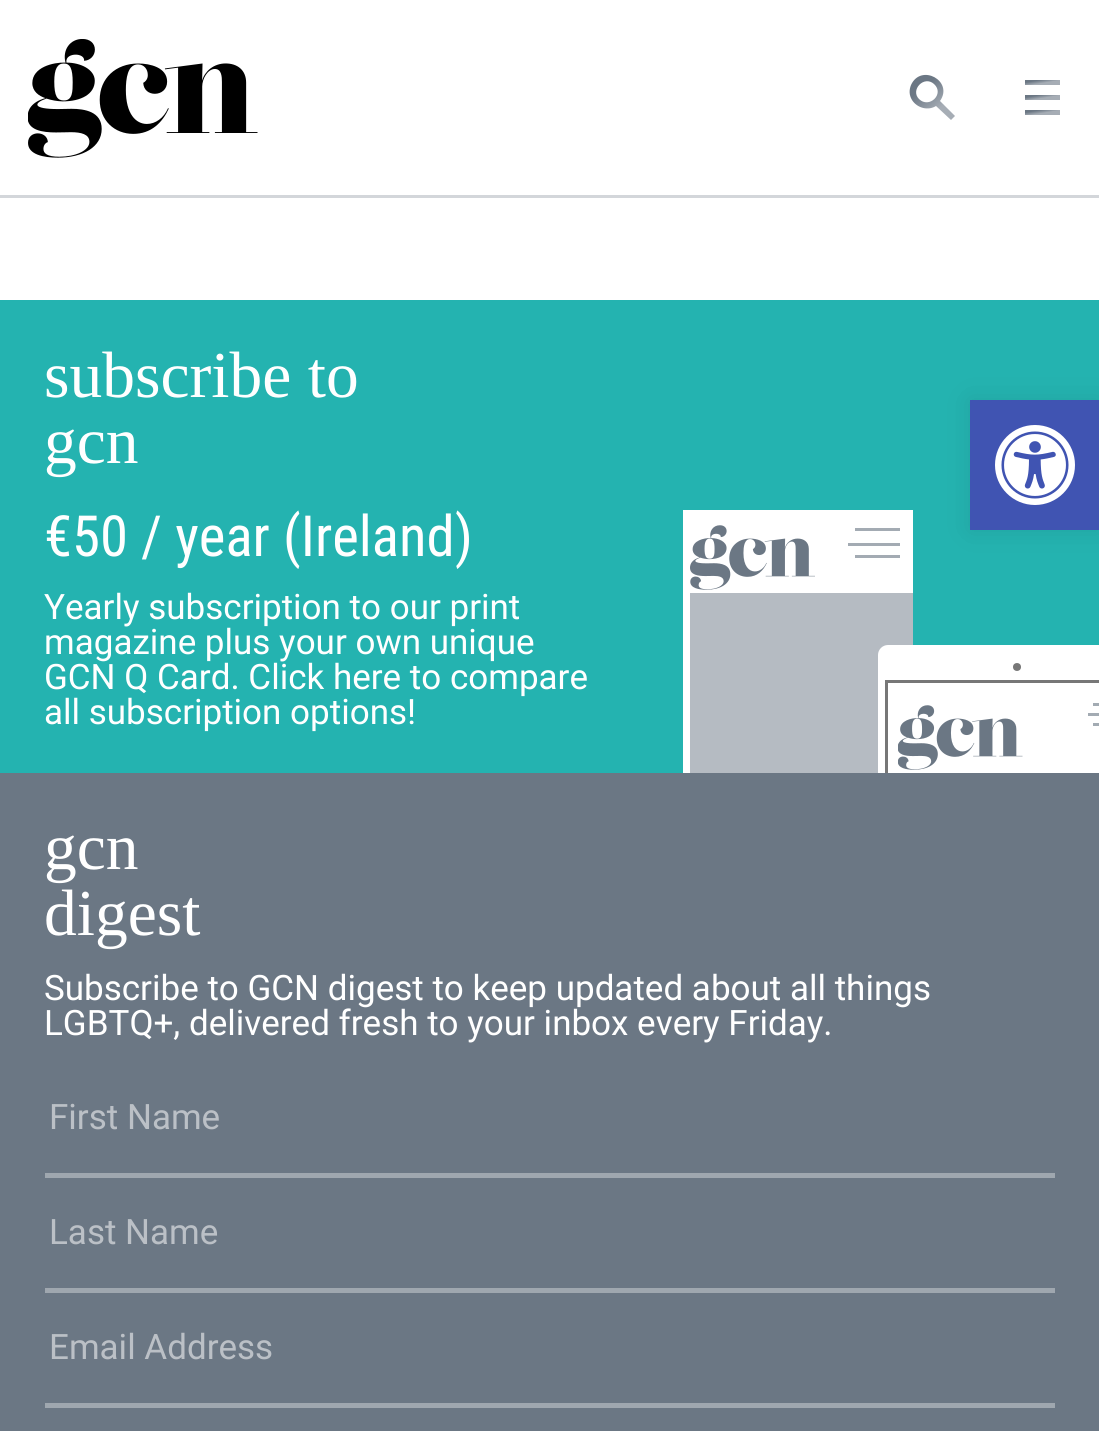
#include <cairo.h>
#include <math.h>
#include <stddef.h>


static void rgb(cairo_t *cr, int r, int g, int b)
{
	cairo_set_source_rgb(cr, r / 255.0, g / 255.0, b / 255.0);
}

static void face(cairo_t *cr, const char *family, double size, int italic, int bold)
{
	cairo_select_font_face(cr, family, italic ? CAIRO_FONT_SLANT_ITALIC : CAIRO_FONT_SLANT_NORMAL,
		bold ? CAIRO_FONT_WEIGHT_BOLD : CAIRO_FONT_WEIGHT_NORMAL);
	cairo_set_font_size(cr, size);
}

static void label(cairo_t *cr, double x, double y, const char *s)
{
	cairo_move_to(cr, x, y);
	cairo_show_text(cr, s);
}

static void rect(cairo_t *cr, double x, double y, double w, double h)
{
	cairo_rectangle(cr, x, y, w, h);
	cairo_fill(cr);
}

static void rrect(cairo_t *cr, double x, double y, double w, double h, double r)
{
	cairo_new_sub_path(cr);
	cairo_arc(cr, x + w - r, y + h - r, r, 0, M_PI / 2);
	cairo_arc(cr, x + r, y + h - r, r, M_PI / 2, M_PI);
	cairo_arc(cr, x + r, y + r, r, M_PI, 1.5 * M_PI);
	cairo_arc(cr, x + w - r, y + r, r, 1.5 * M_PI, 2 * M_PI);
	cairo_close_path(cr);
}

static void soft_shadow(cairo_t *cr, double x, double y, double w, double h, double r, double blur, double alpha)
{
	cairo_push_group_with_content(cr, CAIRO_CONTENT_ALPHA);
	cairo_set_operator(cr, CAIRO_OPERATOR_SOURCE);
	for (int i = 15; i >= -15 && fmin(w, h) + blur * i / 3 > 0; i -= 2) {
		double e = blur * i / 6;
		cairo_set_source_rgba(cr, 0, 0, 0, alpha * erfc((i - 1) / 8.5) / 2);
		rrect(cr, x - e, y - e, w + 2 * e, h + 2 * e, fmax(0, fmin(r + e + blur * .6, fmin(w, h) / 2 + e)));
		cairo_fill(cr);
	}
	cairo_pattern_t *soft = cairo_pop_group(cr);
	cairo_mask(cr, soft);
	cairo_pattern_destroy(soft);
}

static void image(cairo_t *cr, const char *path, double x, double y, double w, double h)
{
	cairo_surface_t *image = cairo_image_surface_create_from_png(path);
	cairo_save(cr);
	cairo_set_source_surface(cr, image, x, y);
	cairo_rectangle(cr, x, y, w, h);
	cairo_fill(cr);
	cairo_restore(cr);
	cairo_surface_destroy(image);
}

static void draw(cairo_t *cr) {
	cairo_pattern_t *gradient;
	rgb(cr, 255, 255, 255);
	cairo_paint(cr);
	image(cr, "image0.png", 28, 39, 230, 119);
	gradient = cairo_pattern_create_linear(910, 75, 939, 109);
	cairo_pattern_add_color_stop_rgba(gradient, 0.4, 0.42, 0.467, 0.518, 1);
	cairo_pattern_add_color_stop_rgba(gradient, 1, 0.651, 0.678, 0.71, 1);
	cairo_set_source(cr, gradient);
	cairo_pattern_destroy(gradient);
	cairo_new_path(cr);
	cairo_move_to(cr, 955, 116);
	cairo_line_to(cr, 940, 101);
	cairo_curve_to(cr, 954, 81, 921, 63, 911, 85);
	cairo_curve_to(cr, 909, 90, 909, 95, 912, 100);
	cairo_curve_to(cr, 917, 108, 928, 111, 936, 106);
	cairo_line_to(cr, 951, 120);
	cairo_close_path(cr);
	cairo_move_to(cr, 919, 99);
	cairo_curve_to(cr, 910, 90, 924, 75, 934, 84);
	cairo_curve_to(cr, 945, 94, 929, 109, 919, 99);
	cairo_close_path(cr);
	cairo_fill(cr);
	gradient = cairo_pattern_create_linear(1025, 95, 1026, 101);
	cairo_pattern_add_color_stop_rgba(gradient, 0.4, 0.42, 0.467, 0.518, 1);
	cairo_pattern_add_color_stop_rgba(gradient, 1, 0.651, 0.678, 0.71, 1);
	cairo_set_source(cr, gradient);
	cairo_pattern_destroy(gradient);
	rect(cr, 1025, 95, 35, 5);
	gradient = cairo_pattern_create_linear(1025, 80, 1026, 86);
	cairo_pattern_add_color_stop_rgba(gradient, 0.4, 0.42, 0.467, 0.518, 1);
	cairo_pattern_add_color_stop_rgba(gradient, 1, 0.651, 0.678, 0.71, 1);
	cairo_set_source(cr, gradient);
	cairo_pattern_destroy(gradient);
	rect(cr, 1025, 80, 35, 5);
	gradient = cairo_pattern_create_linear(1025, 110, 1026, 116);
	cairo_pattern_add_color_stop_rgba(gradient, 0.4, 0.42, 0.467, 0.518, 1);
	cairo_pattern_add_color_stop_rgba(gradient, 1, 0.651, 0.678, 0.71, 1);
	cairo_set_source(cr, gradient);
	cairo_pattern_destroy(gradient);
	rect(cr, 1025, 110, 35, 5);
	rgb(cr, 211, 214, 218);
	rect(cr, 0, 195, 1099, 3);
	rgb(cr, 36, 179, 176);
	rect(cr, 0, 300, 1099, 473);
	face(cr, "Liberation Serif", 65.5, 0, 0);
	rgb(cr, 255, 255, 255);
	label(cr, 44, 397, "subscribe to");
	label(cr, 44, 463, "gcn");
	face(cr, "Roboto Condensed", 56.75, 0, 0);
	label(cr, 44, 556, "€50 / year (Ireland)");
	face(cr, "Roboto", 35, 0, 0);
	label(cr, 44, 619, "Yearly subscription to our print");
	label(cr, 44, 654, "magazine plus your own unique");
	label(cr, 44, 689, "GCN Q Card. Click here to compare");
	label(cr, 44, 724, "all subscription options!");
	rect(cr, 683, 510, 230, 263);
	image(cr, "image1.png", 690, 525, 125, 65);
	rgb(cr, 163, 171, 179);
	rect(cr, 855, 528, 45, 3);
	rect(cr, 855, 555, 45, 3);
	rect(cr, 848, 543, 52, 3);
	rgb(cr, 181, 187, 194);
	rect(cr, 690, 593, 223, 180);
	rgb(cr, 255, 255, 255);
	cairo_new_path(cr);
	cairo_move_to(cr, 888, 645);
	cairo_line_to(cr, 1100, 645);
	cairo_line_to(cr, 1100, 773);
	cairo_line_to(cr, 878, 773);
	cairo_line_to(cr, 878, 655);
	cairo_curve_to(cr, 878, 649.5, 882.5, 645, 888, 645);
	cairo_close_path(cr);
	cairo_fill(cr);
	rgb(cr, 119, 119, 119);
	cairo_arc(cr, 1017, 667, 4, 0, 2 * M_PI);
	cairo_fill(cr);
	cairo_rectangle(cr, 886.5, 681.5, 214, 395);
	cairo_set_line_width(cr, 3);
	cairo_stroke(cr);
	image(cr, "image2.png", 898, 705, 125, 65);
	rgb(cr, 163, 171, 179);
	rect(cr, 1093, 703, 6, 3);
	rect(cr, 1093, 723, 6, 3);
	rect(cr, 1088, 713, 11, 3);
	rgb(cr, 107, 119, 132);
	rect(cr, 0, 773, 1099, 658);
	face(cr, "Liberation Serif", 65.5, 0, 0);
	rgb(cr, 255, 255, 255);
	label(cr, 44, 869, "gcn");
	label(cr, 44, 935, "digest");
	face(cr, "Roboto", 35, 0, 0);
	label(cr, 44, 1000, "Subscribe to GCN digest to keep updated about all things");
	label(cr, 44, 1035, "LGBTQ+, delivered fresh to your inbox every Friday.");
	rgb(cr, 159, 167, 175);
	rect(cr, 45, 1173, 1010, 5);
	rgb(cr, 187, 192, 198);
	label(cr, 49, 1129, "First Name");
	rgb(cr, 159, 167, 175);
	rect(cr, 45, 1288, 1010, 5);
	rgb(cr, 187, 192, 198);
	label(cr, 49, 1244, "Last Name");
	rgb(cr, 159, 167, 175);
	rect(cr, 45, 1403, 1010, 5);
	rgb(cr, 187, 192, 198);
	label(cr, 49, 1359, "Email Address");
	rgb(cr, 0, 0, 0);
	soft_shadow(cr, 970, 400, 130, 130, 0, 12.5, 0.1);
	rgb(cr, 64, 84, 178);
	rect(cr, 970, 400, 129, 130);
	image(cr, "image3.png", 995, 425, 80, 80);
}

int main(void) {
	cairo_surface_t *surface = cairo_image_surface_create(CAIRO_FORMAT_RGB24, 1099, 1431);
	cairo_t *cr = cairo_create(surface);
	cairo_font_options_t *options = cairo_font_options_create();
	cairo_font_options_set_hint_metrics(options, CAIRO_HINT_METRICS_OFF);
	cairo_font_options_set_hint_style(options, CAIRO_HINT_STYLE_NONE);
	cairo_set_font_options(cr, options);
	cairo_set_miter_limit(cr, 4);
	draw(cr);
	cairo_surface_write_to_png(surface, "render.png");
	cairo_font_options_destroy(options);
	cairo_destroy(cr);
	cairo_surface_destroy(surface);
	return 0;
}
